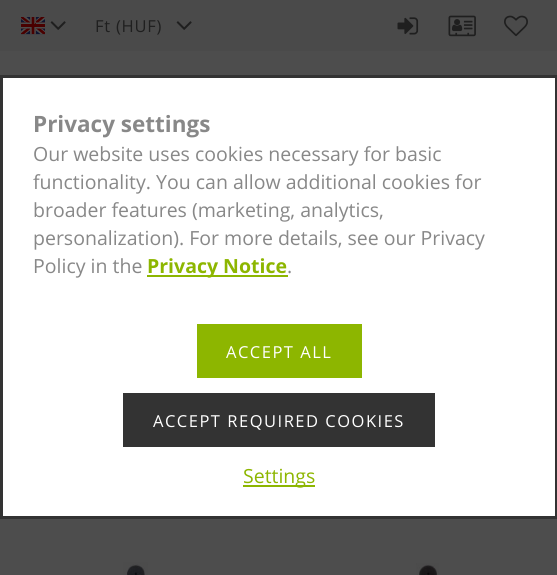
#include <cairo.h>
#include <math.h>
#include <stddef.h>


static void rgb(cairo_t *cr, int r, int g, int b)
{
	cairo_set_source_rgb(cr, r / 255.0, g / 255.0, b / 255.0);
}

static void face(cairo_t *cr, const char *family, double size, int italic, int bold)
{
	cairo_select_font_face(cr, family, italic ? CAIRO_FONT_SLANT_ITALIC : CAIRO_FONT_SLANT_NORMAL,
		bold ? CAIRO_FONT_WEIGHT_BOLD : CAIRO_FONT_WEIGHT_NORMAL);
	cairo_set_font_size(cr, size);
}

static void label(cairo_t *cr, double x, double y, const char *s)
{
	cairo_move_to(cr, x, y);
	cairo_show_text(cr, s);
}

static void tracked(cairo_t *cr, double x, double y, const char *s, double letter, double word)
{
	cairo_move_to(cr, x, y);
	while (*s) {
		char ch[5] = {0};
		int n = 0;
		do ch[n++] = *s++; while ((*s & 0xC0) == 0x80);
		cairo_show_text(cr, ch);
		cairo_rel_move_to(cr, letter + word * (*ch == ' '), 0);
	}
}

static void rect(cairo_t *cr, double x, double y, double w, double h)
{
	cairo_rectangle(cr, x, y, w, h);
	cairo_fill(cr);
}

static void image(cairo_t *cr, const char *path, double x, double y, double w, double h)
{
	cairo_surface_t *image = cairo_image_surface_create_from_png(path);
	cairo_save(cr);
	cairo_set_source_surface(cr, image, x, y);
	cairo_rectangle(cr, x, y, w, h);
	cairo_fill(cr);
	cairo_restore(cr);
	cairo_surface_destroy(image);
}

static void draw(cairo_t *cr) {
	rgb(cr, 77, 77, 77);
	cairo_paint(cr);
	rgb(cr, 74, 74, 74);
	rect(cr, 0, 0, 557, 51);
	image(cr, "image0.png", 21, 17, 24, 18);
	image(cr, "image1.png", 50, 21, 16, 9);
	face(cr, "Open Sans", 16.5, 0, 0);
	rgb(cr, 31, 31, 31);
	tracked(cr, 95, 32, "Ft (HUF)", 0.75, 0);
	image(cr, "image1.png", 176, 21, 16, 9);
	image(cr, "image2.png", 397, 17, 22, 18);
	image(cr, "image3.png", 448, 15, 28, 22);
	image(cr, "image4.png", 504, 15, 24, 22);
	image(cr, "image5.png", 123, 562, 25, 13);
	image(cr, "image6.png", 416, 563, 23, 12);
	rgb(cr, 255, 255, 255);
	cairo_rectangle(cr, 1.5, 76.5, 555, 441);
	cairo_fill_preserve(cr);
	rgb(cr, 51, 51, 51);
	cairo_set_line_width(cr, 3);
	cairo_stroke(cr);
	face(cr, "Open Sans", 22.5, 0, 1);
	rgb(cr, 136, 136, 136);
	label(cr, 33, 132, "Privacy settings");
	face(cr, "Open Sans", 19.5, 0, 0);
	label(cr, 33, 161, "Our website uses cookies necessary for basic");
	label(cr, 33, 189, "functionality. You can allow additional cookies for");
	label(cr, 33, 217, "broader features (marketing, analytics,");
	label(cr, 33, 245, "personalization). For more details, see our Privacy");
	label(cr, 33, 273, "Policy in the");
	rgb(cr, 141, 182, 0);
	rect(cr, 147, 275, 141, 2);
	face(cr, "Open Sans", 19.5, 0, 1);
	label(cr, 147, 273, "Privacy Notice");
	face(cr, "Open Sans", 19.5, 0, 0);
	rgb(cr, 136, 136, 136);
	label(cr, 287, 273, ".");
	rgb(cr, 141, 182, 0);
	rect(cr, 197, 324, 165, 54);
	face(cr, "Open Sans", 16.5, 0, 0);
	rgb(cr, 255, 255, 255);
	tracked(cr, 226, 358, "ACCEPT ALL", 1.5, 0);
	rgb(cr, 51, 51, 51);
	rect(cr, 123, 393, 312, 54);
	rgb(cr, 255, 255, 255);
	tracked(cr, 153, 427, "ACCEPT REQUIRED COOKIES", 1.5, 0);
	rgb(cr, 141, 182, 0);
	rect(cr, 243, 485, 72, 2);
	face(cr, "Open Sans", 19.5, 0, 0);
	label(cr, 243, 483, "Settings");
}

int main(void) {
	cairo_surface_t *surface = cairo_image_surface_create(CAIRO_FORMAT_RGB24, 557, 575);
	cairo_t *cr = cairo_create(surface);
	cairo_font_options_t *options = cairo_font_options_create();
	cairo_font_options_set_hint_metrics(options, CAIRO_HINT_METRICS_OFF);
	cairo_font_options_set_hint_style(options, CAIRO_HINT_STYLE_NONE);
	cairo_set_font_options(cr, options);
	cairo_set_miter_limit(cr, 4);
	draw(cr);
	cairo_surface_write_to_png(surface, "render.png");
	cairo_font_options_destroy(options);
	cairo_destroy(cr);
	cairo_surface_destroy(surface);
	return 0;
}
